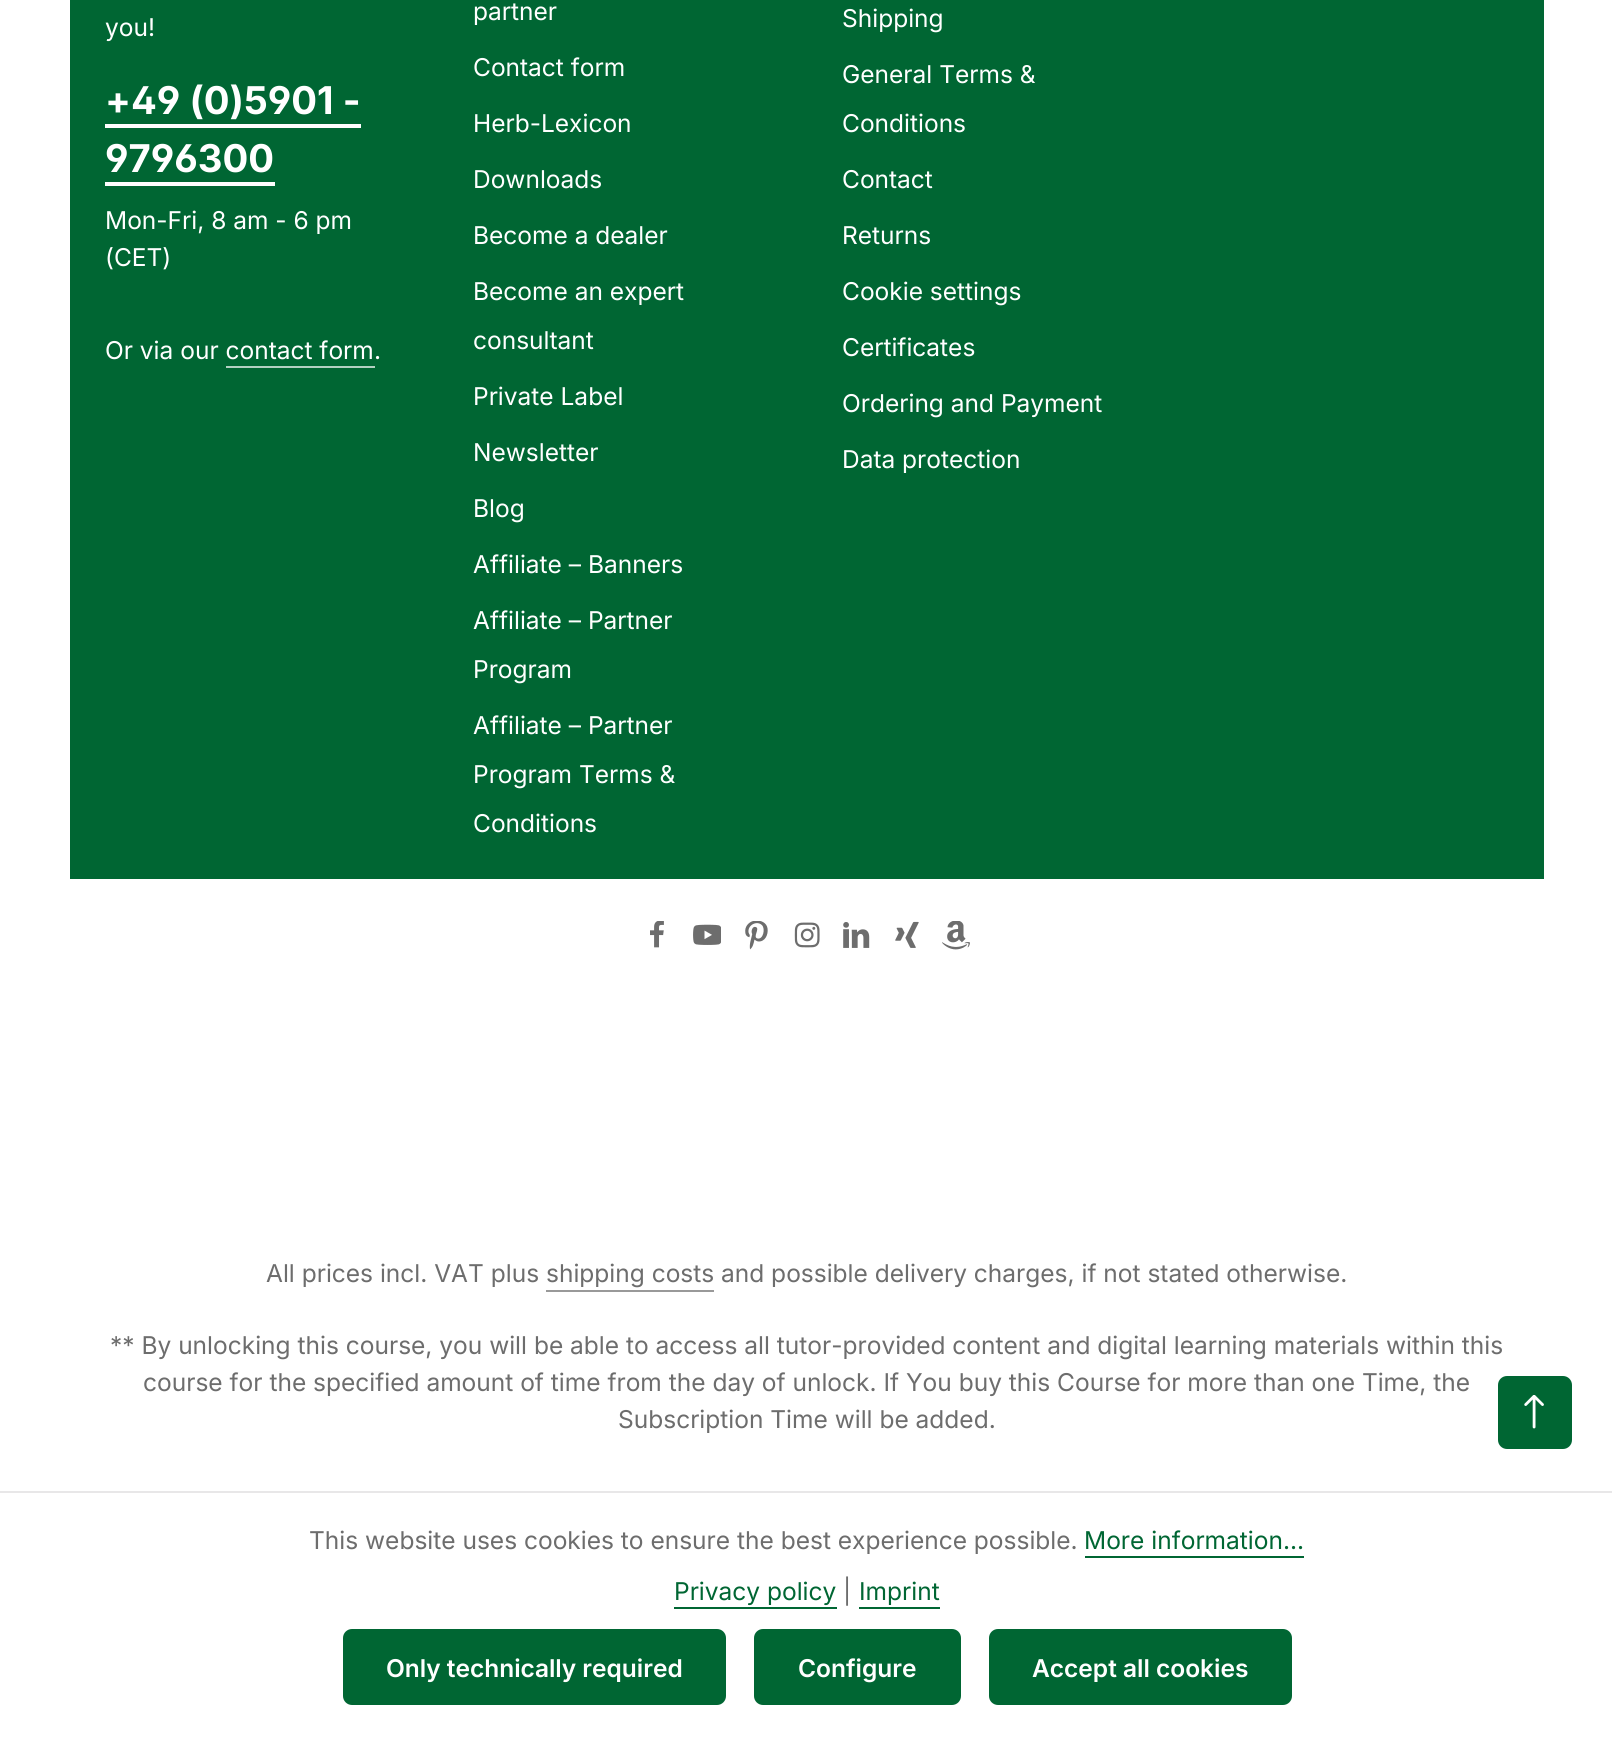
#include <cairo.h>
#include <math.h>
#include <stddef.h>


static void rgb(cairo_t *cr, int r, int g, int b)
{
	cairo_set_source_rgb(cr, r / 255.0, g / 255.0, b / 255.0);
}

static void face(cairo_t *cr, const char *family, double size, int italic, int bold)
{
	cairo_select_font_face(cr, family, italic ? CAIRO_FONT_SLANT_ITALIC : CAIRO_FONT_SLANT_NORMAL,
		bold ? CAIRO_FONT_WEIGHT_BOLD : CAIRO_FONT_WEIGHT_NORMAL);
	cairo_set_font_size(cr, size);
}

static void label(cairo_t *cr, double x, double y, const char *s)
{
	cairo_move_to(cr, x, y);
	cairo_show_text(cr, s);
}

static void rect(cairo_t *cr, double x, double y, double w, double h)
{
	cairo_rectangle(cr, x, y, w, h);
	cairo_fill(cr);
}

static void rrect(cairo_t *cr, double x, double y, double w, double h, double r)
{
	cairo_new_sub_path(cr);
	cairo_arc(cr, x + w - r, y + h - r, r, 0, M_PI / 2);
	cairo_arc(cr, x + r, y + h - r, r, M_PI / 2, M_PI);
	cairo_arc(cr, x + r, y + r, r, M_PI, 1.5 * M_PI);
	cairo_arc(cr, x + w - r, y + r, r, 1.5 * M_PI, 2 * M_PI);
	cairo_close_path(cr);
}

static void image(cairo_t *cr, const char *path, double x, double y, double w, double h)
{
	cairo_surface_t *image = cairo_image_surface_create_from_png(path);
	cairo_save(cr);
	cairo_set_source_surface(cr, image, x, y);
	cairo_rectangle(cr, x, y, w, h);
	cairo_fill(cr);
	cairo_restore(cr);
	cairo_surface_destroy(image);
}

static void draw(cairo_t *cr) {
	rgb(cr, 255, 255, 255);
	cairo_paint(cr);
	rgb(cr, 0, 102, 51);
	rect(cr, 70, 0, 1474, 879);
	face(cr, "Inter", 24.5, 0, 0);
	rgb(cr, 255, 255, 255);
	label(cr, 105, 36, "you!");
	face(cr, "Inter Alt", 38.25, 0, 1);
	label(cr, 105, 114, "+49 (0)5901 -");
	rect(cr, 105, 124, 256, 4);
	label(cr, 105, 172, "9796300");
	rect(cr, 105, 182, 170, 4);
	face(cr, "Inter", 24.5, 0, 0);
	label(cr, 105, 229, "Mon-Fri, 8 am - 6 pm");
	label(cr, 105, 266, "(CET)");
	label(cr, 105, 359, "Or via our contact form");
	label(cr, 374, 359, ".");
	rgb(cr, 179, 209, 194);
	rect(cr, 226, 366, 149, 2);
	rgb(cr, 255, 255, 255);
	label(cr, 473, 20, "partner");
	label(cr, 473, 76, "Contact form");
	label(cr, 473, 132, "Herb-Lexicon");
	label(cr, 473, 188, "Downloads");
	label(cr, 473, 244, "Become a dealer");
	label(cr, 473, 300, "Become an expert");
	label(cr, 473, 349, "consultant");
	label(cr, 473, 405, "Private Label");
	label(cr, 473, 461, "Newsletter");
	label(cr, 473, 517, "Blog");
	label(cr, 473, 573, "Affiliate – Banners");
	label(cr, 473, 629, "Affiliate – Partner");
	label(cr, 473, 678, "Program");
	label(cr, 473, 734, "Affiliate – Partner");
	label(cr, 473, 783, "Program Terms &");
	label(cr, 473, 832, "Conditions");
	label(cr, 842, 27, "Shipping");
	label(cr, 842, 83, "General Terms &");
	label(cr, 842, 132, "Conditions");
	label(cr, 842, 188, "Contact");
	label(cr, 842, 244, "Returns");
	label(cr, 842, 300, "Cookie settings");
	label(cr, 842, 356, "Certificates");
	label(cr, 842, 412, "Ordering and Payment");
	label(cr, 842, 468, "Data protection");
	image(cr, "image0.png", 650, 921, 14, 27);
	image(cr, "image1.png", 693, 924, 28, 21);
	image(cr, "image2.png", 745, 921, 23, 29);
	image(cr, "image3.png", 794, 922, 26, 26);
	image(cr, "image4.png", 843, 922, 27, 26);
	image(cr, "image5.png", 895, 921, 24, 27);
	image(cr, "image6.png", 942, 921, 28, 29);
	rgb(cr, 109, 109, 109);
	label(cr, 266, 1282, "All prices incl. VAT plus shipping costs");
	label(cr, 721, 1282, "and possible delivery charges, if not stated otherwise.");
	rgb(cr, 153, 153, 153);
	rect(cr, 546, 1290, 168, 2);
	rgb(cr, 109, 109, 109);
	label(cr, 110, 1354, "** By unlocking this course, you will be able to access all tutor-provided content and digital learning materials within this");
	label(cr, 143, 1391, "course for the specified amount of time from the day of unlock. If You buy this Course for more than one Time, the");
	label(cr, 618, 1428, "Subscription Time will be added.");
	rgb(cr, 0, 102, 51);
	rrect(cr, 1499, 1377, 72, 71, 8);
	cairo_fill_preserve(cr);
	cairo_stroke(cr);
	image(cr, "image7.png", 1524, 1395, 20, 34);
	rgb(cr, 232, 231, 232);
	rect(cr, 0, 1491, 1612, 2);
	rgb(cr, 109, 109, 109);
	label(cr, 309, 1549, "This website uses cookies to ensure the best experience possible.");
	rgb(cr, 0, 102, 51);
	label(cr, 1084, 1549, "More information...");
	rect(cr, 1085, 1556, 219, 2);
	label(cr, 674, 1600, "Privacy policy");
	rect(cr, 674, 1607, 163, 2);
	rgb(cr, 109, 109, 109);
	label(cr, 843, 1600, "|");
	rgb(cr, 0, 102, 51);
	label(cr, 859, 1600, "Imprint");
	rect(cr, 859, 1607, 81, 2);
	rrect(cr, 344, 1630, 381, 74, 8);
	cairo_fill_preserve(cr);
	cairo_stroke(cr);
	face(cr, "Inter SemiBold", 24.5, 0, 0);
	rgb(cr, 255, 255, 255);
	label(cr, 386, 1677, "Only technically required");
	rgb(cr, 0, 102, 51);
	rrect(cr, 755, 1630, 205, 74, 8);
	cairo_fill_preserve(cr);
	cairo_stroke(cr);
	rgb(cr, 255, 255, 255);
	label(cr, 798, 1677, "Configure");
	rgb(cr, 0, 102, 51);
	rrect(cr, 990, 1630, 301, 74, 8);
	cairo_fill_preserve(cr);
	cairo_stroke(cr);
	rgb(cr, 255, 255, 255);
	label(cr, 1032, 1677, "Accept all cookies");
}

int main(void) {
	cairo_surface_t *surface = cairo_image_surface_create(CAIRO_FORMAT_RGB24, 1612, 1738);
	cairo_t *cr = cairo_create(surface);
	cairo_font_options_t *options = cairo_font_options_create();
	cairo_font_options_set_hint_metrics(options, CAIRO_HINT_METRICS_OFF);
	cairo_font_options_set_hint_style(options, CAIRO_HINT_STYLE_NONE);
	cairo_set_font_options(cr, options);
	cairo_set_miter_limit(cr, 4);
	draw(cr);
	cairo_surface_write_to_png(surface, "render.png");
	cairo_font_options_destroy(options);
	cairo_destroy(cr);
	cairo_surface_destroy(surface);
	return 0;
}
